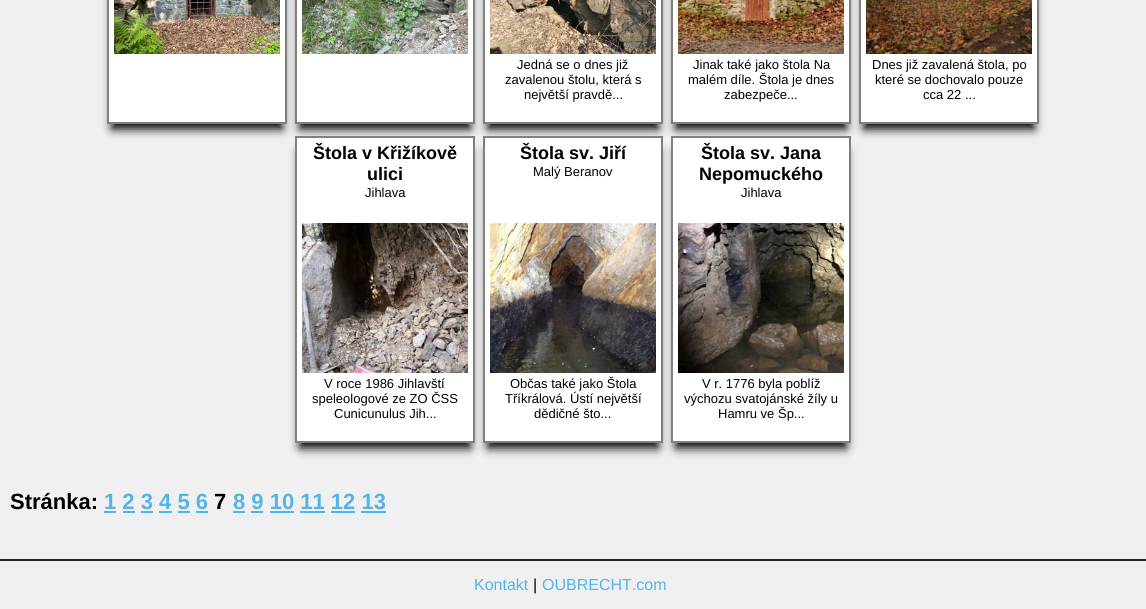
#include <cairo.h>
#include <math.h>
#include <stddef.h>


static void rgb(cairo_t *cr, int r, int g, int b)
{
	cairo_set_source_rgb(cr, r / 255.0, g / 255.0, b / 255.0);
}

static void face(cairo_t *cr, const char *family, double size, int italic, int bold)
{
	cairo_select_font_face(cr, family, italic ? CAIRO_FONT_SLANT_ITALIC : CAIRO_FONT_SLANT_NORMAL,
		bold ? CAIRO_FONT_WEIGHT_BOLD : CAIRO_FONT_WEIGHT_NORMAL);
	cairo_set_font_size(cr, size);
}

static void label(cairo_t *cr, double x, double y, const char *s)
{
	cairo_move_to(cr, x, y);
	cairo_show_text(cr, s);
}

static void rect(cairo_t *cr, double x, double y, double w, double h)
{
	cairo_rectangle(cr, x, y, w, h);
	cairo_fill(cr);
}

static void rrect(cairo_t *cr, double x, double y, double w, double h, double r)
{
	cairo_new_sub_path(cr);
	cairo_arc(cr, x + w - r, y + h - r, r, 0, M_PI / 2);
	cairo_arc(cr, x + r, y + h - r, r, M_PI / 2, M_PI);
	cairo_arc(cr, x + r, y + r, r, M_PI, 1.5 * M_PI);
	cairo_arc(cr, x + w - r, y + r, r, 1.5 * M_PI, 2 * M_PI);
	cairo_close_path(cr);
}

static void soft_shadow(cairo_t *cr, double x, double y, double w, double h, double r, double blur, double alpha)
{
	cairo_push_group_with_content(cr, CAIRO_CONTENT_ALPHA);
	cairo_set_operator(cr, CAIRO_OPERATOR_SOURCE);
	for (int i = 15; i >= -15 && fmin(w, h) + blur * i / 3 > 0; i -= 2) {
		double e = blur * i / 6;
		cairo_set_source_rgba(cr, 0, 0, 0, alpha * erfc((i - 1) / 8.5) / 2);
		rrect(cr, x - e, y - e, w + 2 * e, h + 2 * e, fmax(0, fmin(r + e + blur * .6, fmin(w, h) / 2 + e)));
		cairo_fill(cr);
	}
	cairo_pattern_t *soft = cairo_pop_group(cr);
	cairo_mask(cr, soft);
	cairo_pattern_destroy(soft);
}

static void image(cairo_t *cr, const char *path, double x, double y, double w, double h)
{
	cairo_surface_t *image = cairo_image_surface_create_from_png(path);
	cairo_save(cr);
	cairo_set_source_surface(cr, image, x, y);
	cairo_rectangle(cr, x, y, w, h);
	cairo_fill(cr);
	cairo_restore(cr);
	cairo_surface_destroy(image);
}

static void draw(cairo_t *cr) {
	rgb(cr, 240, 240, 240);
	cairo_paint(cr);
	rgb(cr, 0, 0, 0);
	soft_shadow(cr, 112, -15, 170, 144, 0, 5, 1);
	rgb(cr, 255, 255, 255);
	cairo_rectangle(cr, 108, -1, 178, 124);
	cairo_fill_preserve(cr);
	rgb(cr, 128, 128, 128);
	cairo_stroke(cr);
	image(cr, "image0.png", 114, 0, 166, 54);
	rgb(cr, 0, 0, 0);
	soft_shadow(cr, 300, -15, 170, 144, 0, 5, 1);
	rgb(cr, 255, 255, 255);
	cairo_rectangle(cr, 296, -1, 178, 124);
	cairo_fill_preserve(cr);
	rgb(cr, 128, 128, 128);
	cairo_stroke(cr);
	image(cr, "image1.png", 302, 0, 166, 54);
	rgb(cr, 0, 0, 0);
	soft_shadow(cr, 488, -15, 170, 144, 0, 5, 1);
	rgb(cr, 255, 255, 255);
	cairo_rectangle(cr, 484, -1, 178, 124);
	cairo_fill_preserve(cr);
	rgb(cr, 128, 128, 128);
	cairo_stroke(cr);
	image(cr, "image2.png", 490, 0, 166, 54);
	face(cr, "Liberation Sans", 13, 0, 0);
	rgb(cr, 0, 0, 0);
	label(cr, 517, 69, "Jedná se o dnes již");
	label(cr, 505, 84, "zavalenou štolu, která s");
	label(cr, 524, 99, "největší pravdě...");
	rgb(cr, 0, 0, 0);
	soft_shadow(cr, 676, -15, 170, 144, 0, 5, 1);
	rgb(cr, 255, 255, 255);
	cairo_rectangle(cr, 672, -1, 178, 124);
	cairo_fill_preserve(cr);
	rgb(cr, 128, 128, 128);
	cairo_stroke(cr);
	image(cr, "image3.png", 678, 0, 166, 54);
	rgb(cr, 0, 0, 0);
	label(cr, 693, 69, "Jinak také jako štola Na");
	label(cr, 688, 84, "malém díle. Štola je dnes");
	label(cr, 724, 99, "zabezpeče...");
	rgb(cr, 0, 0, 0);
	soft_shadow(cr, 864, -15, 170, 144, 0, 5, 1);
	rgb(cr, 255, 255, 255);
	cairo_rectangle(cr, 860, -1, 178, 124);
	cairo_fill_preserve(cr);
	rgb(cr, 128, 128, 128);
	cairo_stroke(cr);
	image(cr, "image4.png", 866, 0, 166, 54);
	rgb(cr, 0, 0, 0);
	label(cr, 872, 69, "Dnes již zavalená štola, po");
	label(cr, 875, 84, "které se dochovalo pouze");
	label(cr, 923, 99, "cca 22 ...");
	rgb(cr, 0, 0, 0);
	soft_shadow(cr, 300, 151, 170, 297, 0, 5, 1);
	rgb(cr, 255, 255, 255);
	cairo_rectangle(cr, 296, 137, 178, 305);
	cairo_fill_preserve(cr);
	rgb(cr, 128, 128, 128);
	cairo_stroke(cr);
	face(cr, "Liberation Sans", 18, 0, 1);
	rgb(cr, 0, 0, 0);
	label(cr, 313, 159, "Štola v Křižíkově");
	label(cr, 367, 180, "ulici");
	face(cr, "Liberation Sans", 13, 0, 0);
	label(cr, 365, 197, "Jihlava");
	image(cr, "image5.png", 302, 223, 166, 150);
	label(cr, 324, 388, "V roce 1986 Jihlavští");
	label(cr, 312, 403, "speleologové ze ZO ČSS");
	label(cr, 334, 418, "Cunicunulus Jih...");
	rgb(cr, 0, 0, 0);
	soft_shadow(cr, 488, 151, 170, 297, 0, 5, 1);
	rgb(cr, 255, 255, 255);
	cairo_rectangle(cr, 484, 137, 178, 305);
	cairo_fill_preserve(cr);
	rgb(cr, 128, 128, 128);
	cairo_stroke(cr);
	face(cr, "Liberation Sans", 18, 0, 1);
	rgb(cr, 0, 0, 0);
	label(cr, 520, 159, "Štola sv. Jiří");
	face(cr, "Liberation Sans", 13, 0, 0);
	label(cr, 533, 176, "Malý Beranov");
	image(cr, "image6.png", 490, 223, 166, 150);
	label(cr, 510, 388, "Občas také jako Štola");
	label(cr, 505, 403, "Tříkrálová. Ústí největší");
	label(cr, 534, 418, "dědičné što...");
	rgb(cr, 0, 0, 0);
	soft_shadow(cr, 676, 151, 170, 297, 0, 5, 1);
	rgb(cr, 255, 255, 255);
	cairo_rectangle(cr, 672, 137, 178, 305);
	cairo_fill_preserve(cr);
	rgb(cr, 128, 128, 128);
	cairo_stroke(cr);
	face(cr, "Liberation Sans", 18, 0, 1);
	rgb(cr, 0, 0, 0);
	label(cr, 701, 159, "Štola sv. Jana");
	label(cr, 699, 180, "Nepomuckého");
	face(cr, "Liberation Sans", 13, 0, 0);
	label(cr, 741, 197, "Jihlava");
	image(cr, "image7.png", 678, 223, 166, 150);
	label(cr, 702, 388, "V r. 1776 byla poblíž");
	label(cr, 684, 403, "výchozu svatojánské žíly u");
	label(cr, 718, 418, "Hamru ve Šp...");
	face(cr, "Liberation Sans", 22, 0, 1);
	label(cr, 10, 509, "Stránka:");
	rgb(cr, 81, 181, 235);
	label(cr, 104, 509, "1 2 3 4 5 6");
	rect(cr, 104, 511, 12, 2);
	rgb(cr, 0, 0, 0);
	label(cr, 214, 509, "7");
	rgb(cr, 81, 181, 235);
	label(cr, 233, 509, "8 9 10 11 12 13");
	rect(cr, 233, 511, 12, 2);
	rect(cr, 123, 511, 12, 2);
	rect(cr, 141, 511, 12, 2);
	rect(cr, 159, 511, 13, 2);
	rect(cr, 178, 511, 12, 2);
	rect(cr, 196, 511, 12, 2);
	rect(cr, 251, 511, 12, 2);
	rect(cr, 270, 511, 24, 2);
	rect(cr, 300, 511, 25, 2);
	rect(cr, 331, 511, 24, 2);
	rect(cr, 361, 511, 25, 2);
	rgb(cr, 36, 36, 36);
	rect(cr, 0, 559, 1146, 2);
	face(cr, "Liberation Sans", 16, 0, 0);
	rgb(cr, 81, 181, 235);
	label(cr, 474, 590, "Kontakt");
	rgb(cr, 0, 0, 0);
	label(cr, 533, 590, "|");
	rgb(cr, 81, 181, 235);
	label(cr, 542, 590, "OUBRECHT.com");
}

int main(void) {
	cairo_surface_t *surface = cairo_image_surface_create(CAIRO_FORMAT_RGB24, 1146, 609);
	cairo_t *cr = cairo_create(surface);
	cairo_font_options_t *options = cairo_font_options_create();
	cairo_font_options_set_hint_metrics(options, CAIRO_HINT_METRICS_OFF);
	cairo_font_options_set_hint_style(options, CAIRO_HINT_STYLE_NONE);
	cairo_set_font_options(cr, options);
	cairo_set_miter_limit(cr, 4);
	draw(cr);
	cairo_surface_write_to_png(surface, "render.png");
	cairo_font_options_destroy(options);
	cairo_destroy(cr);
	cairo_surface_destroy(surface);
	return 0;
}
